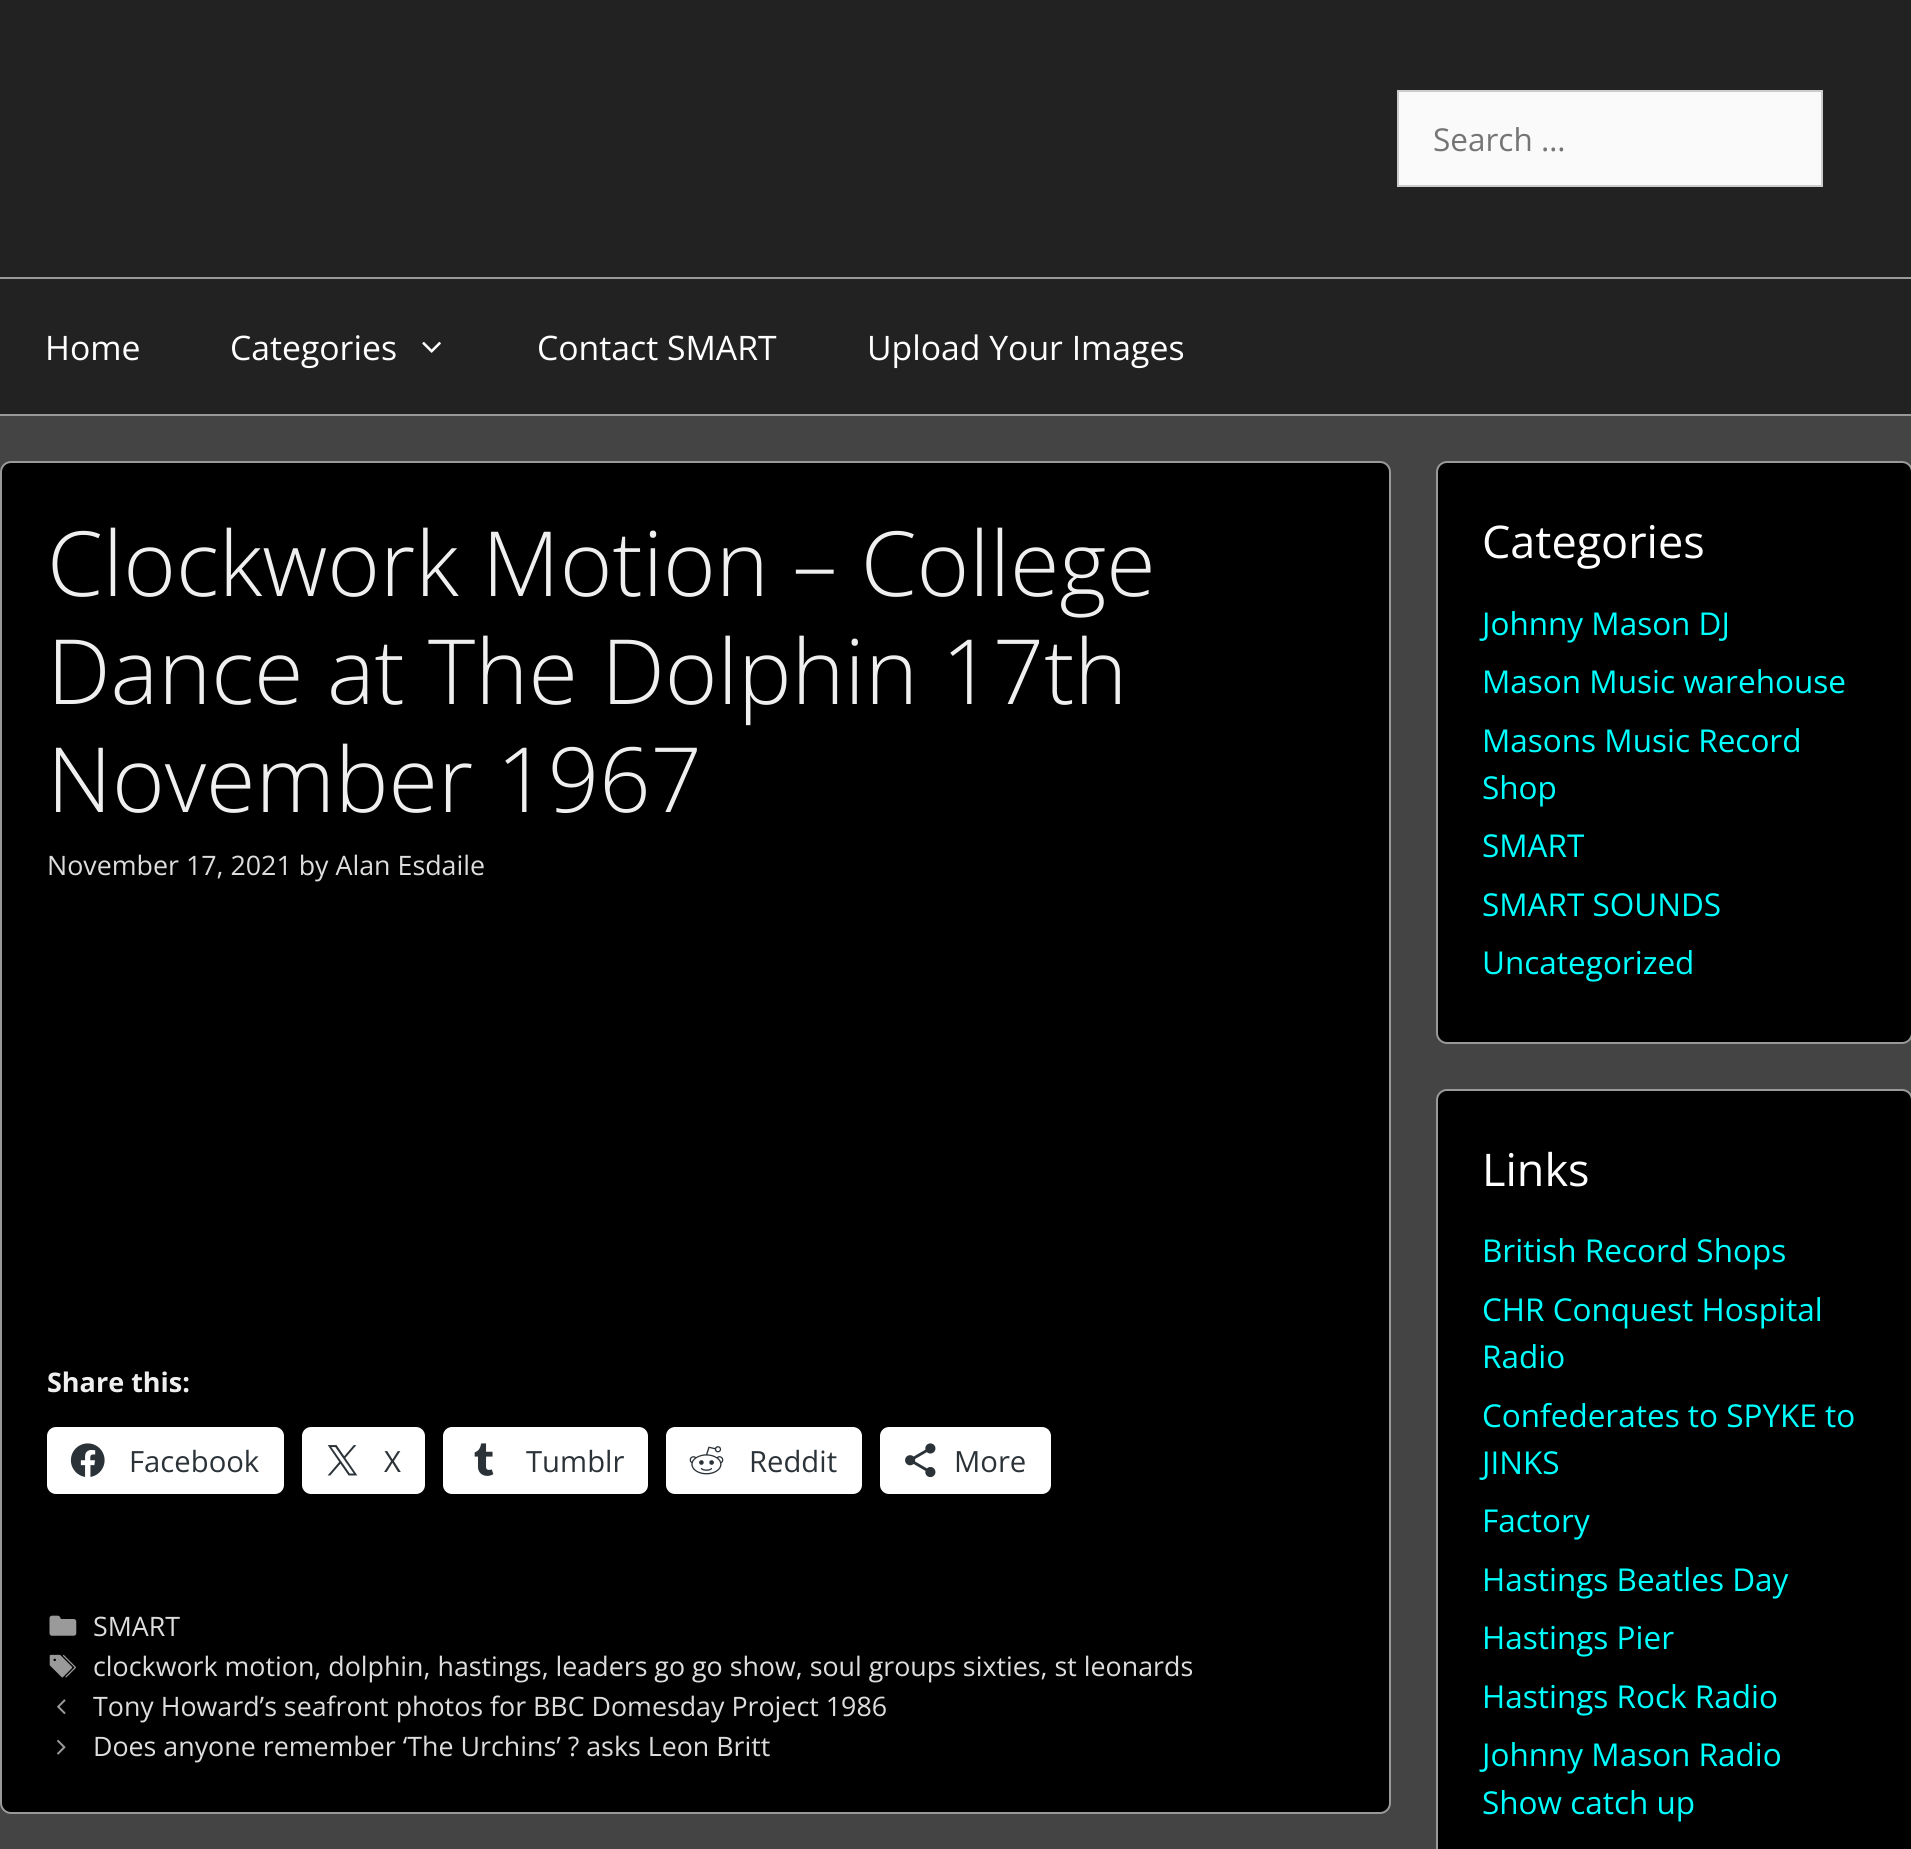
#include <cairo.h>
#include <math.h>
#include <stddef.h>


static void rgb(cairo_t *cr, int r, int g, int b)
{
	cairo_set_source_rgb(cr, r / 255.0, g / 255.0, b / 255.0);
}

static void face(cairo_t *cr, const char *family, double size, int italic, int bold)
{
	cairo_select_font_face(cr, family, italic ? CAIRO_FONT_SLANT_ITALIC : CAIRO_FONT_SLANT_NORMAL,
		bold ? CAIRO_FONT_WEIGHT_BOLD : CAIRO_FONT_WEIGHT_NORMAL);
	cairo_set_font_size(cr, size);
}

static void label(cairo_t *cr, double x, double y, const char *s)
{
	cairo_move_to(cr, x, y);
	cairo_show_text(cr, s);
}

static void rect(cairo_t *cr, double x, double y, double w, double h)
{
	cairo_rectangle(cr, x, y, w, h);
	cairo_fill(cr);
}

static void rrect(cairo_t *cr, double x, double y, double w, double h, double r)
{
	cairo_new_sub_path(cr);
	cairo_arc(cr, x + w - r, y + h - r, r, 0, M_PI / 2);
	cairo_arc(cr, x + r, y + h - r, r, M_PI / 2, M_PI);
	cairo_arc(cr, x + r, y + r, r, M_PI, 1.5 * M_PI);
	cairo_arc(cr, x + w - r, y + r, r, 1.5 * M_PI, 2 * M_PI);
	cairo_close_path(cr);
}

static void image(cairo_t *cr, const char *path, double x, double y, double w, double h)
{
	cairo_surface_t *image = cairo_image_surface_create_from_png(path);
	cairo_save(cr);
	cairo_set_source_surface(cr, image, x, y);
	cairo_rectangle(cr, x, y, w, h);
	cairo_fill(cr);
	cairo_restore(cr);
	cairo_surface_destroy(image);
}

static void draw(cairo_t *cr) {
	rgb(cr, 68, 68, 68);
	cairo_paint(cr);
	rgb(cr, 34, 34, 34);
	rect(cr, 0, 0, 1911, 277);
	rgb(cr, 153, 153, 153);
	rect(cr, 0, 277, 1911, 2);
	rgb(cr, 250, 250, 250);
	cairo_rectangle(cr, 1398, 91, 424, 95);
	cairo_fill_preserve(cr);
	rgb(cr, 204, 204, 204);
	cairo_stroke(cr);
	face(cr, "Open Sans", 31.5, 0, 0);
	rgb(cr, 117, 117, 117);
	label(cr, 1433, 151, "Search …");
	rgb(cr, 34, 34, 34);
	rect(cr, 0, 279, 1911, 135);
	rgb(cr, 153, 153, 153);
	rect(cr, 0, 414, 1911, 2);
	face(cr, "Open Sans", 33.75, 0, 0);
	rgb(cr, 255, 255, 255);
	label(cr, 45, 360, "Home");
	label(cr, 230, 360, "Categories");
	image(cr, "image0.png", 422, 341, 19, 12);
	label(cr, 537, 360, "Contact SMART");
	label(cr, 867, 360, "Upload Your Images");
	rgb(cr, 0, 0, 0);
	rrect(cr, 1, 462, 1389, 1351, 10);
	cairo_fill_preserve(cr);
	rgb(cr, 153, 153, 153);
	cairo_stroke(cr);
	face(cr, "Open Sans Light", 90, 0, 0);
	rgb(cr, 239, 239, 239);
	label(cr, 47, 596, "Clockwork Motion – College");
	label(cr, 47, 704, "Dance at The Dolphin 17th");
	label(cr, 47, 812, "November 1967");
	face(cr, "Open Sans", 26.8, 0, 0);
	rgb(cr, 221, 221, 221);
	label(cr, 47, 875, "November 17, 2021 by Alan Esdaile");
	face(cr, "Open Sans", 27, 0, 1);
	rgb(cr, 239, 239, 239);
	label(cr, 47, 1392, "Share this:");
	rgb(cr, 255, 255, 255);
	rrect(cr, 47, 1427, 237, 67, 9);
	cairo_fill(cr);
	image(cr, "image1.png", 70, 1443, 35, 34);
	face(cr, "Open Sans", 29.25, 0, 0);
	rgb(cr, 44, 51, 56);
	label(cr, 129, 1472, "Facebook");
	rgb(cr, 255, 255, 255);
	rrect(cr, 302, 1427, 123, 67, 9);
	cairo_fill(cr);
	image(cr, "image2.png", 327, 1445, 31, 31);
	rgb(cr, 44, 51, 56);
	label(cr, 384, 1472, "X");
	rgb(cr, 255, 255, 255);
	rrect(cr, 443, 1427, 205, 67, 9);
	cairo_fill(cr);
	image(cr, "image3.png", 474, 1443, 20, 33);
	rgb(cr, 44, 51, 56);
	label(cr, 526, 1472, "Tumblr");
	rgb(cr, 255, 255, 255);
	rrect(cr, 666, 1427, 196, 67, 9);
	cairo_fill(cr);
	image(cr, "image4.png", 689, 1446, 35, 29);
	rgb(cr, 44, 51, 56);
	label(cr, 749, 1472, "Reddit");
	rgb(cr, 255, 255, 255);
	rrect(cr, 880, 1427, 171, 67, 9);
	cairo_fill(cr);
	image(cr, "image5.png", 905, 1443, 31, 35);
	rgb(cr, 44, 51, 56);
	label(cr, 954, 1472, "More");
	image(cr, "image6.png", 49, 1615, 28, 21);
	face(cr, "Open Sans", 26.8, 0, 0);
	rgb(cr, 221, 221, 221);
	label(cr, 93, 1636, "SMART");
	image(cr, "image7.png", 49, 1654, 27, 24);
	label(cr, 93, 1676, "clockwork motion, dolphin, hastings, leaders go go show, soul groups sixties, st leonards");
	image(cr, "image8.png", 57, 1699, 9, 16);
	label(cr, 93, 1716, "Tony Howard’s seafront photos for BBC Domesday Project 1986");
	image(cr, "image9.png", 57, 1739, 9, 16);
	label(cr, 93, 1756, "Does anyone remember ‘The Urchins’ ? asks Leon Britt");
	rgb(cr, 0, 0, 0);
	rrect(cr, 1437, 462, 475, 581, 10);
	cairo_fill_preserve(cr);
	rgb(cr, 153, 153, 153);
	cairo_stroke(cr);
	face(cr, "Open Sans", 45, 0, 0);
	rgb(cr, 255, 255, 255);
	label(cr, 1482, 558, "Categories");
	face(cr, "Open Sans", 31.5, 0, 0);
	rgb(cr, 0, 255, 255);
	label(cr, 1482, 635, "Johnny Mason DJ");
	label(cr, 1482, 693, "Mason Music warehouse");
	label(cr, 1482, 752, "Masons Music Record");
	label(cr, 1482, 799, "Shop");
	label(cr, 1482, 857, "SMART");
	label(cr, 1482, 916, "SMART SOUNDS");
	label(cr, 1482, 974, "Uncategorized");
	rgb(cr, 0, 0, 0);
	rrect(cr, 1437, 1090, 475, 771, 10);
	cairo_fill_preserve(cr);
	rgb(cr, 153, 153, 153);
	cairo_stroke(cr);
	face(cr, "Open Sans", 45, 0, 0);
	rgb(cr, 255, 255, 255);
	label(cr, 1482, 1186, "Links");
	face(cr, "Open Sans", 31.5, 0, 0);
	rgb(cr, 0, 255, 255);
	label(cr, 1482, 1262, "British Record Shops");
	label(cr, 1482, 1321, "CHR Conquest Hospital");
	label(cr, 1482, 1368, "Radio");
	label(cr, 1482, 1427, "Confederates to SPYKE to");
	label(cr, 1482, 1474, "JINKS");
	label(cr, 1482, 1532, "Factory");
	label(cr, 1482, 1591, "Hastings Beatles Day");
	label(cr, 1482, 1649, "Hastings Pier");
	label(cr, 1482, 1708, "Hastings Rock Radio");
	label(cr, 1482, 1766, "Johnny Mason Radio");
	label(cr, 1482, 1814, "Show catch up");
}

int main(void) {
	cairo_surface_t *surface = cairo_image_surface_create(CAIRO_FORMAT_RGB24, 1911, 1849);
	cairo_t *cr = cairo_create(surface);
	cairo_font_options_t *options = cairo_font_options_create();
	cairo_font_options_set_hint_metrics(options, CAIRO_HINT_METRICS_OFF);
	cairo_font_options_set_hint_style(options, CAIRO_HINT_STYLE_NONE);
	cairo_set_font_options(cr, options);
	cairo_set_miter_limit(cr, 4);
	draw(cr);
	cairo_surface_write_to_png(surface, "render.png");
	cairo_font_options_destroy(options);
	cairo_destroy(cr);
	cairo_surface_destroy(surface);
	return 0;
}
